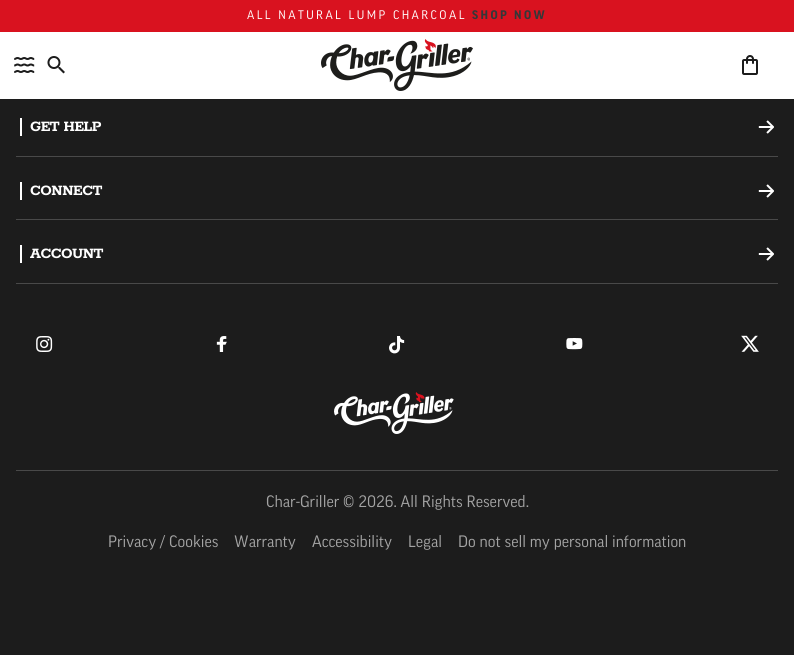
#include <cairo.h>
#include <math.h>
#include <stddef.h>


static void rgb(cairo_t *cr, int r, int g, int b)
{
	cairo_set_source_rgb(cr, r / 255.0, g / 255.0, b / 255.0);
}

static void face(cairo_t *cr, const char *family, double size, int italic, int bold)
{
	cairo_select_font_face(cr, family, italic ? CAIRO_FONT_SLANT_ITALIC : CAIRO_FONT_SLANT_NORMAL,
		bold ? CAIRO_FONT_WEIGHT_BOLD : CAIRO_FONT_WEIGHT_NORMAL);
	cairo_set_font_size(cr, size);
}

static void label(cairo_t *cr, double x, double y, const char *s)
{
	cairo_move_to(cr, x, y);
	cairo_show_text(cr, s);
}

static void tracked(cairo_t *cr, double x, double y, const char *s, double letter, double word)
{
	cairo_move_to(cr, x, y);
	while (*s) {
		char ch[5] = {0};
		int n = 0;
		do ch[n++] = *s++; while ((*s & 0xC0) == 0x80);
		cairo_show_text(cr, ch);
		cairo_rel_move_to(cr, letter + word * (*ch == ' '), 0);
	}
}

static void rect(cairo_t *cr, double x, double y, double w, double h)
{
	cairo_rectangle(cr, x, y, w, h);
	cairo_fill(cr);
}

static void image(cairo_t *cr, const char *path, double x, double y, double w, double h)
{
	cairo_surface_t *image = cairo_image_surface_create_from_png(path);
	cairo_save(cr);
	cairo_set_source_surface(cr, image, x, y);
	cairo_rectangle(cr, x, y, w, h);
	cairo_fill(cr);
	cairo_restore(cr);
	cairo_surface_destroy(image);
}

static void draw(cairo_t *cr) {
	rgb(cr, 28, 28, 28);
	cairo_paint(cr);
	rgb(cr, 255, 255, 255);
	rect(cr, 0, 32, 794, 67);
	rgb(cr, 217, 18, 31);
	rect(cr, 0, 0, 794, 32);
	face(cr, "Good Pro", 12, 0, 0);
	rgb(cr, 255, 255, 255);
	tracked(cr, 247, 19, "ALL NATURAL LUMP CHARCOAL", 2.4, 0);
	face(cr, "Good Pro", 12, 0, 1);
	rgb(cr, 52, 55, 56);
	tracked(cr, 472, 19, "SHOP NOW", 2.4, 0);
	image(cr, "image0.png", 14, 57, 21, 16);
	image(cr, "image1.png", 47, 56, 18, 18);
	image(cr, "image2.png", 321, 39, 152, 52);
	image(cr, "image3.png", 742, 55, 16, 20);
	rgb(cr, 255, 255, 255);
	rect(cr, 20, 118, 2, 18);
	face(cr, "Rokkitt", 16, 0, 1);
	tracked(cr, 30, 131, "GET HELP", -0.5, 0);
	image(cr, "image4.png", 758, 120, 16, 14);
	rgb(cr, 73, 73, 73);
	rect(cr, 16, 156, 762, 1);
	rgb(cr, 255, 255, 255);
	rect(cr, 20, 182, 2, 18);
	tracked(cr, 30, 195, "CONNECT", -0.5, 0);
	image(cr, "image4.png", 758, 184, 16, 14);
	rgb(cr, 73, 73, 73);
	rect(cr, 16, 219, 762, 1);
	rgb(cr, 255, 255, 255);
	rect(cr, 20, 245, 2, 18);
	tracked(cr, 30, 258, "ACCOUNT", -0.5, 0);
	image(cr, "image4.png", 758, 247, 16, 14);
	rgb(cr, 73, 73, 73);
	rect(cr, 16, 283, 762, 1);
	image(cr, "image5.png", 36, 336, 17, 16);
	image(cr, "image6.png", 216, 336, 11, 16);
	image(cr, "image7.png", 389, 336, 16, 18);
	image(cr, "image8.png", 566, 338, 17, 12);
	image(cr, "image9.png", 741, 335, 18, 17);
	image(cr, "image10.png", 334, 392, 120, 42);
	rect(cr, 16, 470, 762, 1);
	face(cr, "Good Pro", 16, 0, 0);
	rgb(cr, 164, 164, 164);
	label(cr, 266, 507, "Char-Griller © 2026. All Rights Reserved.");
	label(cr, 108, 547, "Privacy / Cookies");
	label(cr, 234, 547, "Warranty");
	label(cr, 312, 547, "Accessibility");
	label(cr, 408, 547, "Legal");
	label(cr, 458, 547, "Do not sell my personal information");
}

int main(void) {
	cairo_surface_t *surface = cairo_image_surface_create(CAIRO_FORMAT_RGB24, 794, 655);
	cairo_t *cr = cairo_create(surface);
	cairo_font_options_t *options = cairo_font_options_create();
	cairo_font_options_set_hint_metrics(options, CAIRO_HINT_METRICS_OFF);
	cairo_font_options_set_hint_style(options, CAIRO_HINT_STYLE_NONE);
	cairo_set_font_options(cr, options);
	cairo_set_miter_limit(cr, 4);
	draw(cr);
	cairo_surface_write_to_png(surface, "render.png");
	cairo_font_options_destroy(options);
	cairo_destroy(cr);
	cairo_surface_destroy(surface);
	return 0;
}
